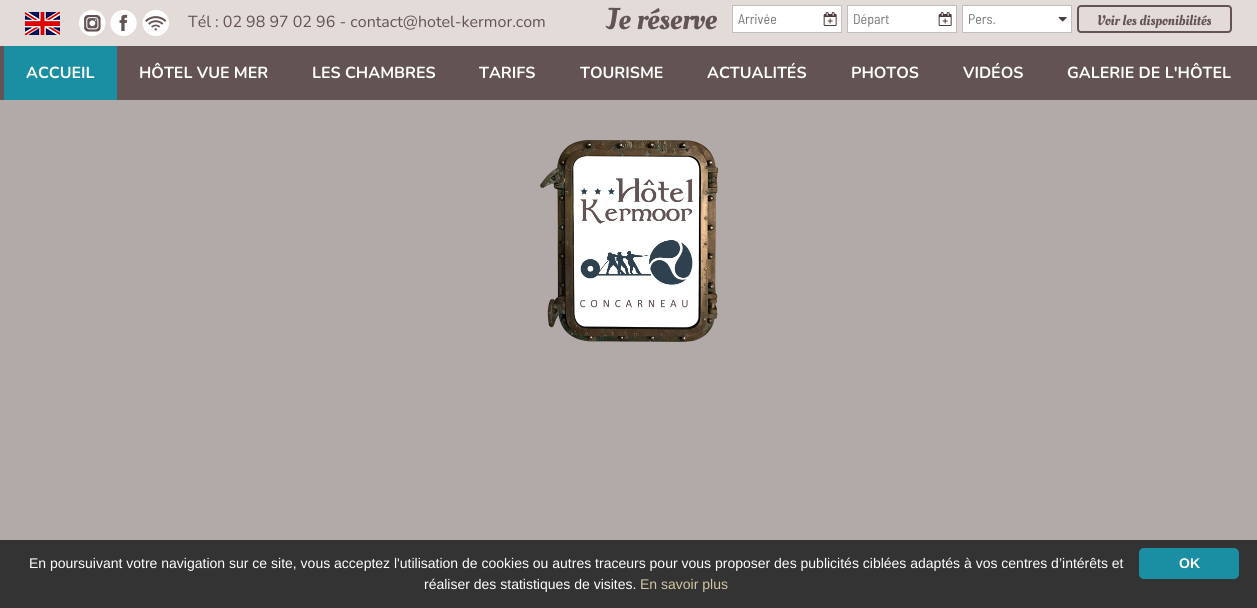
#include <cairo.h>
#include <math.h>
#include <stddef.h>


static void rgb(cairo_t *cr, int r, int g, int b)
{
	cairo_set_source_rgb(cr, r / 255.0, g / 255.0, b / 255.0);
}

static void face(cairo_t *cr, const char *family, double size, int italic, int bold)
{
	cairo_select_font_face(cr, family, italic ? CAIRO_FONT_SLANT_ITALIC : CAIRO_FONT_SLANT_NORMAL,
		bold ? CAIRO_FONT_WEIGHT_BOLD : CAIRO_FONT_WEIGHT_NORMAL);
	cairo_set_font_size(cr, size);
}

static void label(cairo_t *cr, double x, double y, const char *s)
{
	cairo_move_to(cr, x, y);
	cairo_show_text(cr, s);
}

static void rect(cairo_t *cr, double x, double y, double w, double h)
{
	cairo_rectangle(cr, x, y, w, h);
	cairo_fill(cr);
}

static void rrect(cairo_t *cr, double x, double y, double w, double h, double r)
{
	cairo_new_sub_path(cr);
	cairo_arc(cr, x + w - r, y + h - r, r, 0, M_PI / 2);
	cairo_arc(cr, x + r, y + h - r, r, M_PI / 2, M_PI);
	cairo_arc(cr, x + r, y + r, r, M_PI, 1.5 * M_PI);
	cairo_arc(cr, x + w - r, y + r, r, 1.5 * M_PI, 2 * M_PI);
	cairo_close_path(cr);
}

static void image(cairo_t *cr, const char *path, double x, double y, double w, double h)
{
	cairo_surface_t *image = cairo_image_surface_create_from_png(path);
	cairo_save(cr);
	cairo_set_source_surface(cr, image, x, y);
	cairo_rectangle(cr, x, y, w, h);
	cairo_fill(cr);
	cairo_restore(cr);
	cairo_surface_destroy(image);
}

static void draw(cairo_t *cr) {
	rgb(cr, 227, 219, 216);
	cairo_paint(cr);
	image(cr, "image0.png", 25, 12, 35, 23);
	image(cr, "image1.png", 79, 10, 27, 26);
	image(cr, "image2.png", 110, 10, 27, 26);
	image(cr, "image3.png", 142, 10, 27, 26);
	face(cr, "Nunito", 16, 0, 0);
	rgb(cr, 99, 83, 83);
	label(cr, 188, 27, "Tél : 02 98 97 02 96 - contact@hotel-kermor.com");
	face(cr, "Oleo Script", 30, 0, 0);
	label(cr, 606, 29, "Je réserve");
	rgb(cr, 255, 255, 255);
	rect(cr, 733, 6, 108, 26);
	image(cr, "image4.png", 823, 12, 14, 14);
	cairo_rectangle(cr, 732.5, 5.5, 109, 27);
	rgb(cr, 191, 191, 191);
	cairo_set_line_width(cr, 1);
	cairo_stroke(cr);
	face(cr, "Barlow Semi Condensed", 14, 0, 0);
	rgb(cr, 119, 119, 119);
	label(cr, 738, 24, "Arrivée");
	rgb(cr, 255, 255, 255);
	rect(cr, 848, 6, 108, 26);
	image(cr, "image4.png", 938, 12, 14, 14);
	cairo_rectangle(cr, 847.5, 5.5, 109, 27);
	rgb(cr, 191, 191, 191);
	cairo_stroke(cr);
	rgb(cr, 119, 119, 119);
	label(cr, 853, 24, "Départ");
	rgb(cr, 255, 255, 255);
	rect(cr, 963, 6, 108, 26);
	image(cr, "image5.png", 1058, 17, 9, 5);
	cairo_rectangle(cr, 962.5, 5.5, 109, 27);
	rgb(cr, 191, 191, 191);
	cairo_stroke(cr);
	rgb(cr, 119, 119, 119);
	label(cr, 968, 24, "Pers.");
	rrect(cr, 1078, 6, 153, 26, 3);
	rgb(cr, 99, 83, 83);
	cairo_set_line_width(cr, 2);
	cairo_stroke(cr);
	face(cr, "Oleo Script", 14, 0, 0);
	label(cr, 1097, 25, "Voir les disponibilités");
	rect(cr, 0, 46, 1257, 54);
	rgb(cr, 26, 142, 163);
	rect(cr, 4, 46, 113, 54);
	face(cr, "Nunito", 16, 0, 1);
	rgb(cr, 255, 255, 255);
	label(cr, 26, 78, "ACCUEIL");
	label(cr, 139, 78, "HÔTEL VUE MER");
	label(cr, 312, 78, "LES CHAMBRES");
	label(cr, 479, 78, "TARIFS");
	label(cr, 580, 78, "TOURISME");
	label(cr, 707, 78, "ACTUALITÉS");
	label(cr, 851, 78, "PHOTOS");
	label(cr, 963, 78, "VIDÉOS");
	label(cr, 1067, 78, "GALERIE DE L'HÔTEL");
	rgb(cr, 178, 170, 169);
	rect(cr, 0, 100, 1257, 440);
	image(cr, "image6.png", 540, 140, 178, 202);
	rgb(cr, 51, 51, 51);
	rect(cr, 0, 540, 1257, 68);
	face(cr, "Liberation Sans", 14, 0, 0);
	rgb(cr, 255, 255, 255);
	label(cr, 29, 568, "En poursuivant votre navigation sur ce site, vous acceptez l'utilisation de cookies ou autres traceurs pour vous proposer des publicités ciblées adaptés à vos centres d’intérêts et");
	label(cr, 424, 589, "réaliser des statistiques de visites.");
	rgb(cr, 210, 197, 163);
	label(cr, 640, 589, "En savoir plus");
	rgb(cr, 26, 142, 163);
	rrect(cr, 1139, 548, 100, 31, 5);
	cairo_fill(cr);
	face(cr, "Liberation Sans", 14, 0, 1);
	rgb(cr, 255, 255, 255);
	label(cr, 1179, 568, "OK");
}

int main(void) {
	cairo_surface_t *surface = cairo_image_surface_create(CAIRO_FORMAT_RGB24, 1257, 608);
	cairo_t *cr = cairo_create(surface);
	cairo_font_options_t *options = cairo_font_options_create();
	cairo_font_options_set_hint_metrics(options, CAIRO_HINT_METRICS_OFF);
	cairo_font_options_set_hint_style(options, CAIRO_HINT_STYLE_NONE);
	cairo_set_font_options(cr, options);
	cairo_set_miter_limit(cr, 4);
	draw(cr);
	cairo_surface_write_to_png(surface, "render.png");
	cairo_font_options_destroy(options);
	cairo_destroy(cr);
	cairo_surface_destroy(surface);
	return 0;
}
